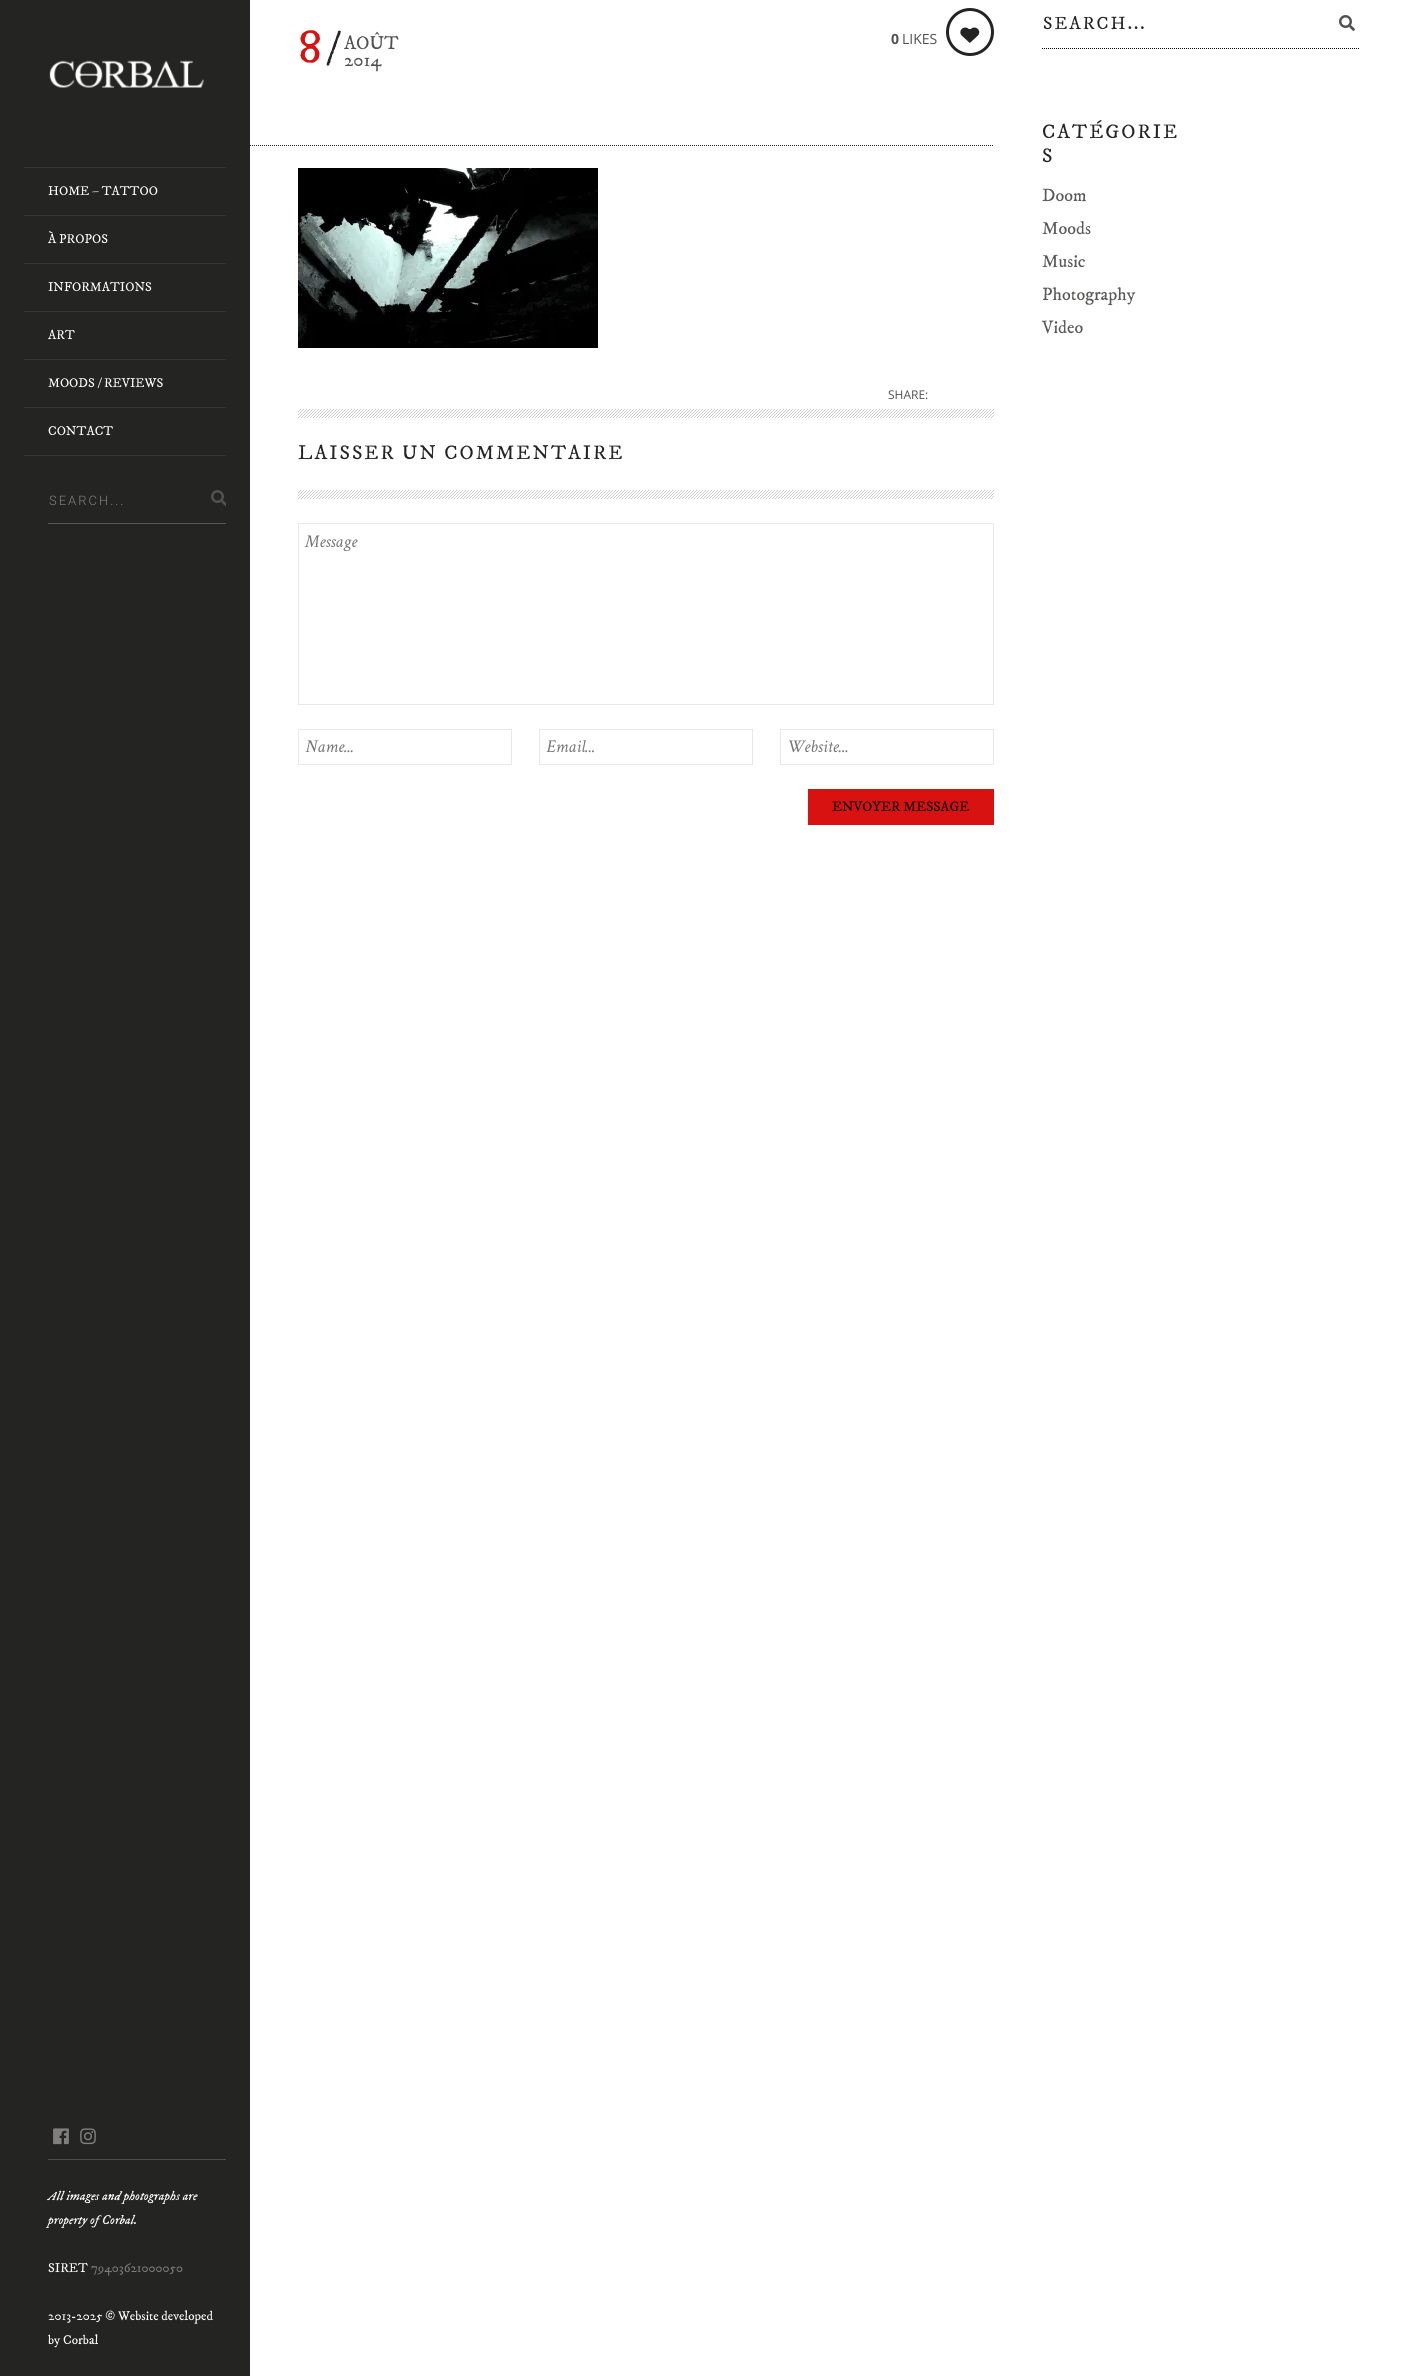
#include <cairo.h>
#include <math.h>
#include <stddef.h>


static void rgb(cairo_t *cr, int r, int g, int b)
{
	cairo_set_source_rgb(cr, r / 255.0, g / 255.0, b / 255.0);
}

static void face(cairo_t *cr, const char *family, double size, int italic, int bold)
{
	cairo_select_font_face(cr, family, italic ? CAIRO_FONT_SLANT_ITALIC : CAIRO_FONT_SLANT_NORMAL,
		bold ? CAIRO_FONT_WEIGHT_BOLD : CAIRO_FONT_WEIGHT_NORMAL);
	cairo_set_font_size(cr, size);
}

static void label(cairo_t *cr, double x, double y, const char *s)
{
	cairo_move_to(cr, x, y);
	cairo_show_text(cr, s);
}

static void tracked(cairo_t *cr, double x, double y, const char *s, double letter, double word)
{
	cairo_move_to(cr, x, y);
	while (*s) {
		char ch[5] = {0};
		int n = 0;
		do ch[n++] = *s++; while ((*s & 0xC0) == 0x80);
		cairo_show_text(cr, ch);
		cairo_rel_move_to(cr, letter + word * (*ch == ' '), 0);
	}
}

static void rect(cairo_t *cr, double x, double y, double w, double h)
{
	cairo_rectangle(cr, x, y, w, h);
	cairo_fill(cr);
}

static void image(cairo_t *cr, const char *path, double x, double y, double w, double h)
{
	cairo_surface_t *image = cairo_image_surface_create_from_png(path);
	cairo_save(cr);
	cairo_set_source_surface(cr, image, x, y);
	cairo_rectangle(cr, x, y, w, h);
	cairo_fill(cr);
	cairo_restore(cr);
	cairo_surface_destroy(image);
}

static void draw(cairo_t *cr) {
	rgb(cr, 255, 255, 255);
	cairo_paint(cr);
	rgb(cr, 36, 36, 35);
	rect(cr, 0, 0, 250, 2376);
	image(cr, "image0.png", 49, 60, 156, 28);
	rgb(cr, 51, 54, 56);
	rect(cr, 24, 167, 202, 1);
	rect(cr, 24, 215, 202, 1);
	face(cr, "IM FELL DW Pica", 13, 0, 0);
	rgb(cr, 255, 255, 255);
	label(cr, 48, 195, "HOME – TATTOO");
	rgb(cr, 51, 54, 56);
	rect(cr, 24, 263, 202, 1);
	rgb(cr, 255, 255, 255);
	label(cr, 48, 243, "À PROPOS");
	rgb(cr, 51, 54, 56);
	rect(cr, 24, 311, 202, 1);
	rgb(cr, 255, 255, 255);
	label(cr, 48, 291, "INFORMATIONS");
	rgb(cr, 51, 54, 56);
	rect(cr, 24, 359, 202, 1);
	rgb(cr, 255, 255, 255);
	label(cr, 48, 339, "ART");
	rgb(cr, 51, 54, 56);
	rect(cr, 24, 407, 202, 1);
	rgb(cr, 255, 255, 255);
	label(cr, 48, 387, "MOODS / REVIEWS");
	rgb(cr, 51, 54, 56);
	rect(cr, 24, 455, 202, 1);
	rgb(cr, 255, 255, 255);
	label(cr, 48, 435, "CONTACT");
	rgb(cr, 89, 89, 87);
	rect(cr, 48, 523, 178, 1);
	face(cr, "Roboto Light", 13, 0, 0);
	rgb(cr, 128, 127, 125);
	tracked(cr, 49, 505, "SEARCH...", 2, 0);
	image(cr, "image1.png", 211, 490, 15, 16);
	rgb(cr, 77, 77, 77);
	rect(cr, 48, 2159, 178, 1);
	image(cr, "image2.png", 53, 2128, 16, 17);
	image(cr, "image3.png", 80, 2128, 16, 17);
	face(cr, "IM FELL DW Pica", 13, 1, 0);
	rgb(cr, 255, 255, 255);
	label(cr, 48, 2200, "All images and photographs are");
	label(cr, 48, 2224, "property of Corbal.");
	face(cr, "IM FELL DW Pica", 13, 0, 0);
	label(cr, 48, 2272, "SIRET");
	rgb(cr, 128, 127, 125);
	label(cr, 91, 2272, "79403621000050");
	rgb(cr, 255, 255, 255);
	label(cr, 48, 2320, "2013-2025 © Website developed");
	label(cr, 48, 2344, "by Corbal");
	face(cr, "IM FELL DW Pica", 48, 0, 0);
	rgb(cr, 216, 17, 17);
	label(cr, 298, 62, "8");
	face(cr, "IM FELL DW Pica", 43, 0, 0);
	rgb(cr, 36, 36, 35);
	label(cr, 326, 62, "/");
	face(cr, "IM FELL DW Pica", 19, 0, 0);
	rgb(cr, 81, 81, 80);
	label(cr, 344, 49, "AOÛT");
	label(cr, 344, 66, "2014");
	cairo_new_path(cr);
	cairo_move_to(cr, 250, 145.5);
	cairo_line_to(cr, 994, 145.5);
	rgb(cr, 36, 36, 35);
	cairo_set_line_width(cr, 1);
	cairo_set_dash(cr, (double[]){1, 1}, 2, 0);
	cairo_stroke(cr);
	face(cr, "Open Sans", 14, 0, 1);
	rgb(cr, 81, 81, 80);
	label(cr, 891, 44, "0");
	face(cr, "Open Sans", 14, 0, 0);
	label(cr, 902, 44, "LIKES");
	cairo_new_path(cr);
	cairo_arc(cr, 970, 32, 22.5, 0, 2 * M_PI);
	rgb(cr, 36, 36, 35);
	cairo_set_line_width(cr, 3);
	cairo_set_dash(cr, NULL, 0, 0);
	cairo_stroke(cr);
	cairo_arc(cr, 970, 32, 3, 0, 2 * M_PI);
	cairo_fill(cr);
	image(cr, "image4.png", 960, 27, 20, 16);
	image(cr, "image5.png", 298, 168, 300, 180);
	face(cr, "Open Sans", 12, 0, 0);
	rgb(cr, 81, 81, 80);
	label(cr, 888, 399, "SHARE:");
	image(cr, "image6.png", 298, 409, 696, 9);
	face(cr, "IM FELL DW Pica", 20, 0, 0);
	rgb(cr, 36, 36, 35);
	tracked(cr, 298, 459, "LAISSER UN COMMENTAIRE", 2, 0);
	image(cr, "image6.png", 298, 490, 696, 9);
	cairo_rectangle(cr, 298.5, 523.5, 695, 181);
	rgb(cr, 229, 233, 235);
	cairo_set_line_width(cr, 1);
	cairo_stroke(cr);
	face(cr, "Crimson Text", 18, 1, 0);
	rgb(cr, 117, 117, 117);
	label(cr, 305, 547, "Message");
	cairo_rectangle(cr, 298.5, 729.5, 213, 35);
	rgb(cr, 229, 233, 235);
	cairo_stroke(cr);
	rgb(cr, 117, 117, 117);
	label(cr, 305, 752, "Name...");
	cairo_rectangle(cr, 539.5, 729.5, 213, 35);
	rgb(cr, 229, 233, 235);
	cairo_stroke(cr);
	rgb(cr, 117, 117, 117);
	label(cr, 546, 752, "Email...");
	cairo_rectangle(cr, 780.5, 729.5, 213, 35);
	rgb(cr, 229, 233, 235);
	cairo_stroke(cr);
	rgb(cr, 117, 117, 117);
	label(cr, 787, 752, "Website...");
	rgb(cr, 216, 17, 17);
	rect(cr, 808, 789, 186, 36);
	face(cr, "IM FELL DW Pica", 14, 0, 0);
	rgb(cr, 0, 0, 0);
	label(cr, 832, 811, "ENVOYER MESSAGE");
	cairo_new_path(cr);
	cairo_move_to(cr, 1042, 48.5);
	cairo_line_to(cr, 1360, 48.5);
	cairo_set_dash(cr, (double[]){1, 1}, 2, 0);
	cairo_stroke(cr);
	face(cr, "IM FELL DW Pica", 18, 0, 0);
	rgb(cr, 36, 36, 35);
	tracked(cr, 1043, 29, "SEARCH...", 2, 0);
	image(cr, "image7.png", 1339, 15, 16, 16);
	face(cr, "IM FELL DW Pica", 20, 0, 0);
	tracked(cr, 1042, 138, "CATÉGORIE", 2, 0);
	tracked(cr, 1042, 162, "S", 2, 0);
	face(cr, "IM FELL DW Pica", 18, 0, 0);
	rgb(cr, 89, 89, 87);
	label(cr, 1042, 201, "Doom");
	label(cr, 1042, 234, "Moods");
	label(cr, 1042, 267, "Music");
	label(cr, 1042, 300, "Photography");
	label(cr, 1042, 333, "Video");
}

int main(void) {
	cairo_surface_t *surface = cairo_image_surface_create(CAIRO_FORMAT_RGB24, 1408, 2376);
	cairo_t *cr = cairo_create(surface);
	cairo_font_options_t *options = cairo_font_options_create();
	cairo_font_options_set_hint_metrics(options, CAIRO_HINT_METRICS_OFF);
	cairo_font_options_set_hint_style(options, CAIRO_HINT_STYLE_NONE);
	cairo_set_font_options(cr, options);
	cairo_set_miter_limit(cr, 4);
	draw(cr);
	cairo_surface_write_to_png(surface, "render.png");
	cairo_font_options_destroy(options);
	cairo_destroy(cr);
	cairo_surface_destroy(surface);
	return 0;
}
